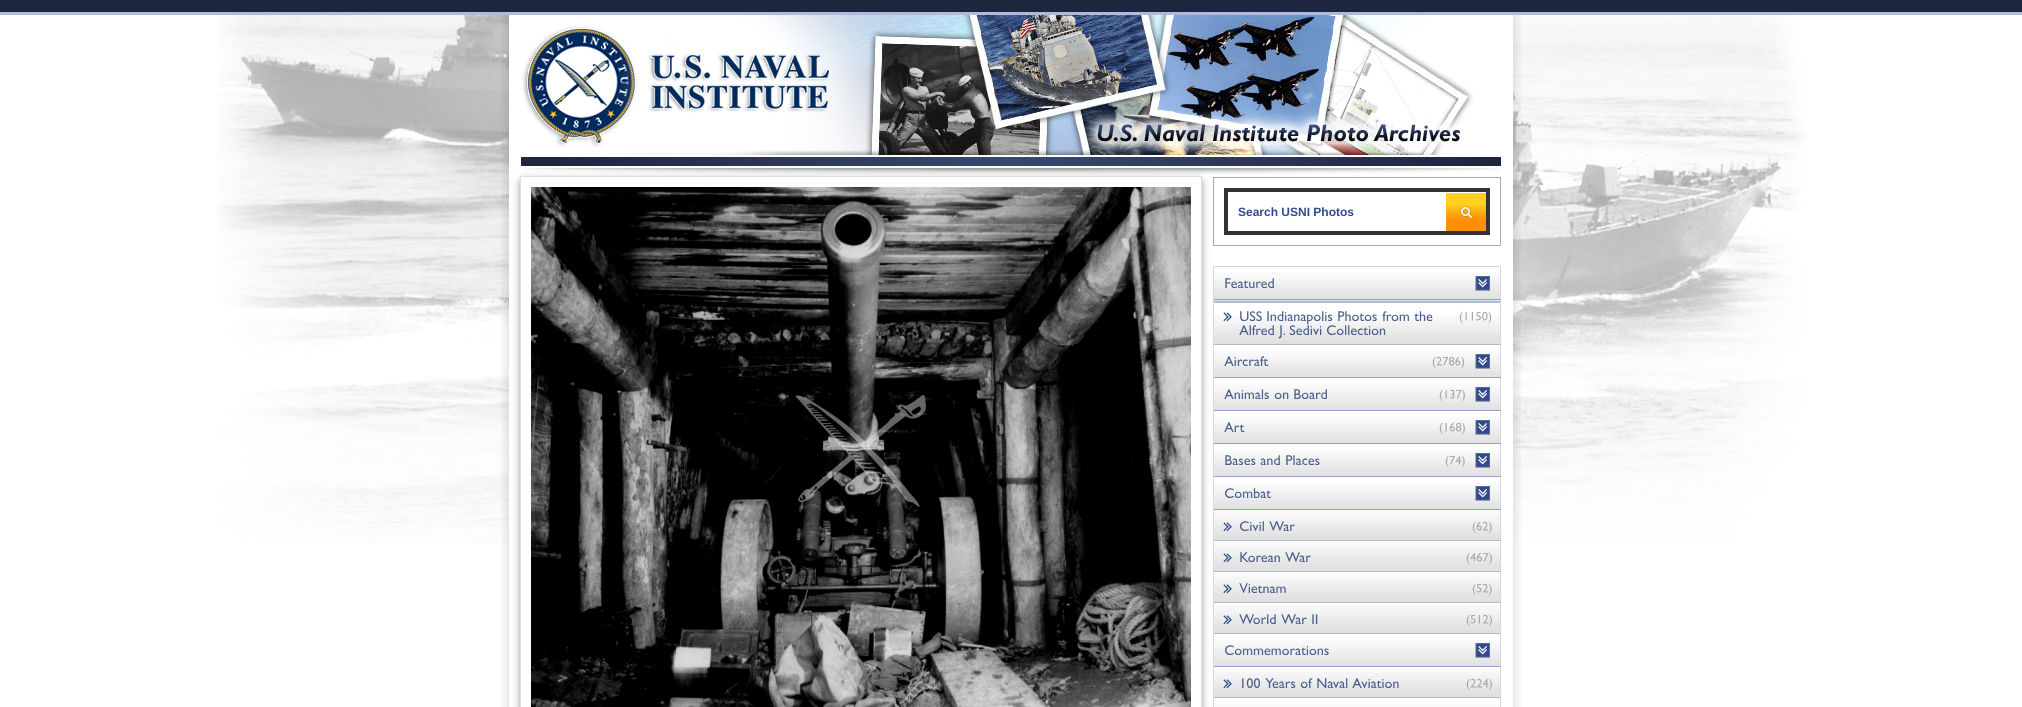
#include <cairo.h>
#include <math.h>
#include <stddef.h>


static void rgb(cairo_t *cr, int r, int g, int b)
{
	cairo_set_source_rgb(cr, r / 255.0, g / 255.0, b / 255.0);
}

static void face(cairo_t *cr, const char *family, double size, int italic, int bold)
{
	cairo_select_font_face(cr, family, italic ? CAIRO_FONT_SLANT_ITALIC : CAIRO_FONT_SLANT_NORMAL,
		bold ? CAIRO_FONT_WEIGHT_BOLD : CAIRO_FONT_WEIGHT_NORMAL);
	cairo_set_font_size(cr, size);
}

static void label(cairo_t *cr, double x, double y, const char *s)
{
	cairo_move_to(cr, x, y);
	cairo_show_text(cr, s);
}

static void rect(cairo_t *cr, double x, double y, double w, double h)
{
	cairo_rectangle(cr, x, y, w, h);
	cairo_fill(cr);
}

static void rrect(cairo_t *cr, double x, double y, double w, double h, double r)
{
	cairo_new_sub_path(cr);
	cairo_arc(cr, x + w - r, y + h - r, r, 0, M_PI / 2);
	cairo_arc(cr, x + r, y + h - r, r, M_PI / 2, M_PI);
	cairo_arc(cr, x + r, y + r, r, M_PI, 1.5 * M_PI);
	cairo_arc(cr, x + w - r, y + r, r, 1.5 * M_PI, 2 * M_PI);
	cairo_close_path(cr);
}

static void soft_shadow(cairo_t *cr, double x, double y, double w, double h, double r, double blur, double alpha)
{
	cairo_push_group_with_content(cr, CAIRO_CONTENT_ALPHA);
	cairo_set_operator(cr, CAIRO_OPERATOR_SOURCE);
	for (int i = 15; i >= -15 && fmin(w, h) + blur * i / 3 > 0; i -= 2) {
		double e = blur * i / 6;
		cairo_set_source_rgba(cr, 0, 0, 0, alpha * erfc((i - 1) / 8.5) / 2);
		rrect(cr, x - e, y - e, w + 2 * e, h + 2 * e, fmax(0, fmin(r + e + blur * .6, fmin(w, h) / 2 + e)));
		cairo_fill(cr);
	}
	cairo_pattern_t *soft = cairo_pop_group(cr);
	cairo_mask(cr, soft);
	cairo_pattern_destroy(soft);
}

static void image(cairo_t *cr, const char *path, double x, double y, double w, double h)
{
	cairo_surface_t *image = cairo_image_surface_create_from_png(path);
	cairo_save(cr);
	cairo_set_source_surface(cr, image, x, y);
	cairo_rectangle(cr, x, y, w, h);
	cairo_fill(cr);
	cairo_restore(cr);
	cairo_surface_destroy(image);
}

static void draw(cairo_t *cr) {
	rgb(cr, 255, 255, 255);
	cairo_paint(cr);
	image(cr, "image0.png", 0, 0, 2022, 15);
	image(cr, "image1.png", 217, 15, 1591, 528);
	image(cr, "image2.png", 501, 15, 1020, 162);
	image(cr, "image3.png", 521, 15, 952, 140);
	image(cr, "image4.png", 521, 157, 980, 18);
	image(cr, "image5.png", 501, 177, 1020, 530);
	cairo_rectangle(cr, 1213.5, 177.5, 287, 68);
	rgb(cr, 170, 170, 170);
	cairo_set_line_width(cr, 1);
	cairo_stroke(cr);
	rgb(cr, 213, 216, 223);
	rect(cr, 1213, 266, 288, 1);
	cairo_save(cr);
	cairo_set_fill_rule(cr, CAIRO_FILL_RULE_EVEN_ODD);
	cairo_new_path(cr);
	cairo_move_to(cr, 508, 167);
	cairo_line_to(cr, 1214, 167);
	cairo_line_to(cr, 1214, 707);
	cairo_line_to(cr, 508, 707);
	cairo_close_path(cr);
	cairo_move_to(cr, 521, 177);
	cairo_line_to(cr, 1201, 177);
	cairo_line_to(cr, 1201, 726);
	cairo_line_to(cr, 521, 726);
	cairo_close_path(cr);
	cairo_clip(cr);
	rgb(cr, 0, 0, 0);
	soft_shadow(cr, 524, 183, 674, 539, 0, 5, 1);
	cairo_restore(cr);
	image(cr, "image6.png", 531, 187, 660, 520);
	cairo_rectangle(cr, 520.5, 176.5, 681, 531);
	rgb(cr, 222, 222, 222);
	cairo_stroke(cr);
	cairo_rectangle(cr, 1226, 190, 262, 43);
	rgb(cr, 51, 51, 51);
	cairo_set_line_width(cr, 4);
	cairo_stroke(cr);
	face(cr, "Liberation Sans", 12, 0, 1);
	rgb(cr, 48, 74, 140);
	label(cr, 1238, 216, "Search USNI Photos");
	image(cr, "image7.png", 1446, 193, 40, 38);
	image(cr, "image8.png", 1214, 273, 286, 30);
	image(cr, "image9.png", 1475, 276, 15, 15);
	rgb(cr, 213, 216, 223);
	rect(cr, 1500, 267, 1, 431);
	rgb(cr, 149, 162, 196);
	rect(cr, 1213, 299, 288, 1);
	rgb(cr, 213, 216, 223);
	rect(cr, 1213, 267, 1, 33);
	image(cr, "image10.png", 1225, 278, 49, 10);
	image(cr, "image11.png", 1214, 315, 286, 29);
	image(cr, "image12.png", 1223, 312, 9, 10);
	rgb(cr, 179, 185, 197);
	rect(cr, 1213, 344, 288, 1);
	rgb(cr, 213, 216, 223);
	rect(cr, 1213, 300, 1, 45);
	image(cr, "image13.png", 1240, 311, 22, 10);
	image(cr, "image14.png", 1267, 311, 66, 14);
	image(cr, "image15.png", 1338, 311, 39, 10);
	image(cr, "image16.png", 1382, 311, 27, 10);
	image(cr, "image17.png", 1414, 311, 19, 10);
	image(cr, "image18.png", 1459, 311, 33, 13);
	image(cr, "image19.png", 1239, 325, 35, 10);
	image(cr, "image20.png", 1278, 325, 8, 14);
	image(cr, "image21.png", 1289, 325, 33, 10);
	image(cr, "image22.png", 1327, 325, 59, 10);
	image(cr, "image23.png", 1214, 351, 286, 26);
	image(cr, "image9.png", 1475, 354, 15, 15);
	rgb(cr, 149, 162, 196);
	rect(cr, 1213, 377, 288, 1);
	rgb(cr, 213, 216, 223);
	rect(cr, 1213, 345, 1, 33);
	image(cr, "image24.png", 1224, 356, 45, 10);
	image(cr, "image25.png", 1432, 356, 33, 13);
	image(cr, "image23.png", 1214, 384, 286, 26);
	image(cr, "image9.png", 1475, 387, 15, 15);
	rgb(cr, 149, 162, 196);
	rect(cr, 1213, 410, 288, 1);
	rgb(cr, 213, 216, 223);
	rect(cr, 1213, 378, 1, 33);
	image(cr, "image26.png", 1224, 389, 45, 10);
	image(cr, "image27.png", 1274, 392, 15, 7);
	image(cr, "image28.png", 1294, 389, 33, 10);
	image(cr, "image29.png", 1439, 389, 26, 13);
	image(cr, "image23.png", 1214, 417, 286, 26);
	image(cr, "image9.png", 1475, 420, 15, 15);
	rgb(cr, 149, 162, 196);
	rect(cr, 1213, 443, 288, 1);
	rgb(cr, 213, 216, 223);
	rect(cr, 1213, 411, 1, 33);
	image(cr, "image30.png", 1224, 422, 21, 10);
	image(cr, "image31.png", 1439, 422, 26, 13);
	image(cr, "image23.png", 1214, 450, 286, 26);
	image(cr, "image9.png", 1475, 453, 15, 15);
	rgb(cr, 149, 162, 196);
	rect(cr, 1213, 476, 288, 1);
	rgb(cr, 213, 216, 223);
	rect(cr, 1213, 444, 1, 33);
	image(cr, "image32.png", 1225, 455, 31, 10);
	image(cr, "image33.png", 1260, 455, 20, 10);
	image(cr, "image34.png", 1286, 455, 34, 10);
	image(cr, "image35.png", 1445, 455, 20, 13);
	image(cr, "image23.png", 1214, 483, 286, 26);
	image(cr, "image9.png", 1475, 486, 15, 15);
	rgb(cr, 149, 162, 196);
	rect(cr, 1213, 509, 288, 1);
	rgb(cr, 213, 216, 223);
	rect(cr, 1213, 477, 1, 33);
	image(cr, "image36.png", 1225, 488, 46, 10);
	image(cr, "image37.png", 1214, 510, 286, 30);
	image(cr, "image38.png", 1223, 522, 9, 10);
	rgb(cr, 179, 185, 197);
	rect(cr, 1213, 540, 288, 1);
	rgb(cr, 213, 216, 223);
	rect(cr, 1213, 510, 1, 31);
	image(cr, "image39.png", 1240, 521, 24, 10);
	image(cr, "image40.png", 1269, 521, 26, 10);
	image(cr, "image41.png", 1472, 521, 20, 13);
	image(cr, "image11.png", 1214, 542, 286, 29);
	image(cr, "image38.png", 1223, 553, 9, 10);
	rgb(cr, 179, 185, 197);
	rect(cr, 1213, 571, 288, 1);
	rgb(cr, 213, 216, 223);
	rect(cr, 1213, 541, 1, 31);
	image(cr, "image42.png", 1240, 552, 40, 10);
	image(cr, "image40.png", 1285, 552, 26, 10);
	image(cr, "image43.png", 1466, 552, 26, 13);
	image(cr, "image11.png", 1214, 573, 286, 29);
	image(cr, "image38.png", 1223, 584, 9, 10);
	rgb(cr, 179, 185, 197);
	rect(cr, 1213, 602, 288, 1);
	rgb(cr, 213, 216, 223);
	rect(cr, 1213, 572, 1, 31);
	image(cr, "image44.png", 1239, 583, 47, 10);
	image(cr, "image45.png", 1472, 583, 20, 13);
	image(cr, "image11.png", 1214, 604, 286, 29);
	image(cr, "image38.png", 1223, 615, 9, 10);
	rgb(cr, 179, 185, 197);
	rect(cr, 1213, 633, 288, 1);
	rgb(cr, 213, 216, 223);
	rect(cr, 1213, 603, 1, 31);
	image(cr, "image46.png", 1239, 614, 37, 10);
	image(cr, "image40.png", 1281, 614, 26, 10);
	image(cr, "image47.png", 1312, 614, 6, 10);
	image(cr, "image48.png", 1466, 614, 26, 13);
	image(cr, "image23.png", 1214, 640, 286, 26);
	image(cr, "image9.png", 1475, 643, 15, 15);
	rgb(cr, 149, 162, 196);
	rect(cr, 1213, 666, 288, 1);
	rgb(cr, 213, 216, 223);
	rect(cr, 1213, 634, 1, 33);
	image(cr, "image49.png", 1225, 645, 104, 10);
	image(cr, "image37.png", 1214, 667, 286, 30);
	image(cr, "image38.png", 1223, 679, 9, 10);
	rgb(cr, 179, 185, 197);
	rect(cr, 1213, 697, 288, 1);
	rgb(cr, 213, 216, 223);
	rect(cr, 1213, 667, 1, 31);
	image(cr, "image50.png", 1242, 678, 18, 10);
	image(cr, "image51.png", 1265, 678, 31, 10);
	image(cr, "image52.png", 1300, 678, 13, 10);
	image(cr, "image53.png", 1317, 678, 31, 10);
	image(cr, "image54.png", 1352, 678, 47, 10);
	image(cr, "image55.png", 1466, 678, 26, 13);
	rgb(cr, 250, 250, 250);
	rect(cr, 1213, 704, 288, 3);
	rgb(cr, 213, 216, 223);
	rect(cr, 1500, 698, 1, 9);
	rect(cr, 1213, 698, 1, 9);
}

int main(void) {
	cairo_surface_t *surface = cairo_image_surface_create(CAIRO_FORMAT_RGB24, 2022, 707);
	cairo_t *cr = cairo_create(surface);
	cairo_font_options_t *options = cairo_font_options_create();
	cairo_font_options_set_hint_metrics(options, CAIRO_HINT_METRICS_OFF);
	cairo_font_options_set_hint_style(options, CAIRO_HINT_STYLE_NONE);
	cairo_set_font_options(cr, options);
	cairo_set_miter_limit(cr, 4);
	draw(cr);
	cairo_surface_write_to_png(surface, "render.png");
	cairo_font_options_destroy(options);
	cairo_destroy(cr);
	cairo_surface_destroy(surface);
	return 0;
}
